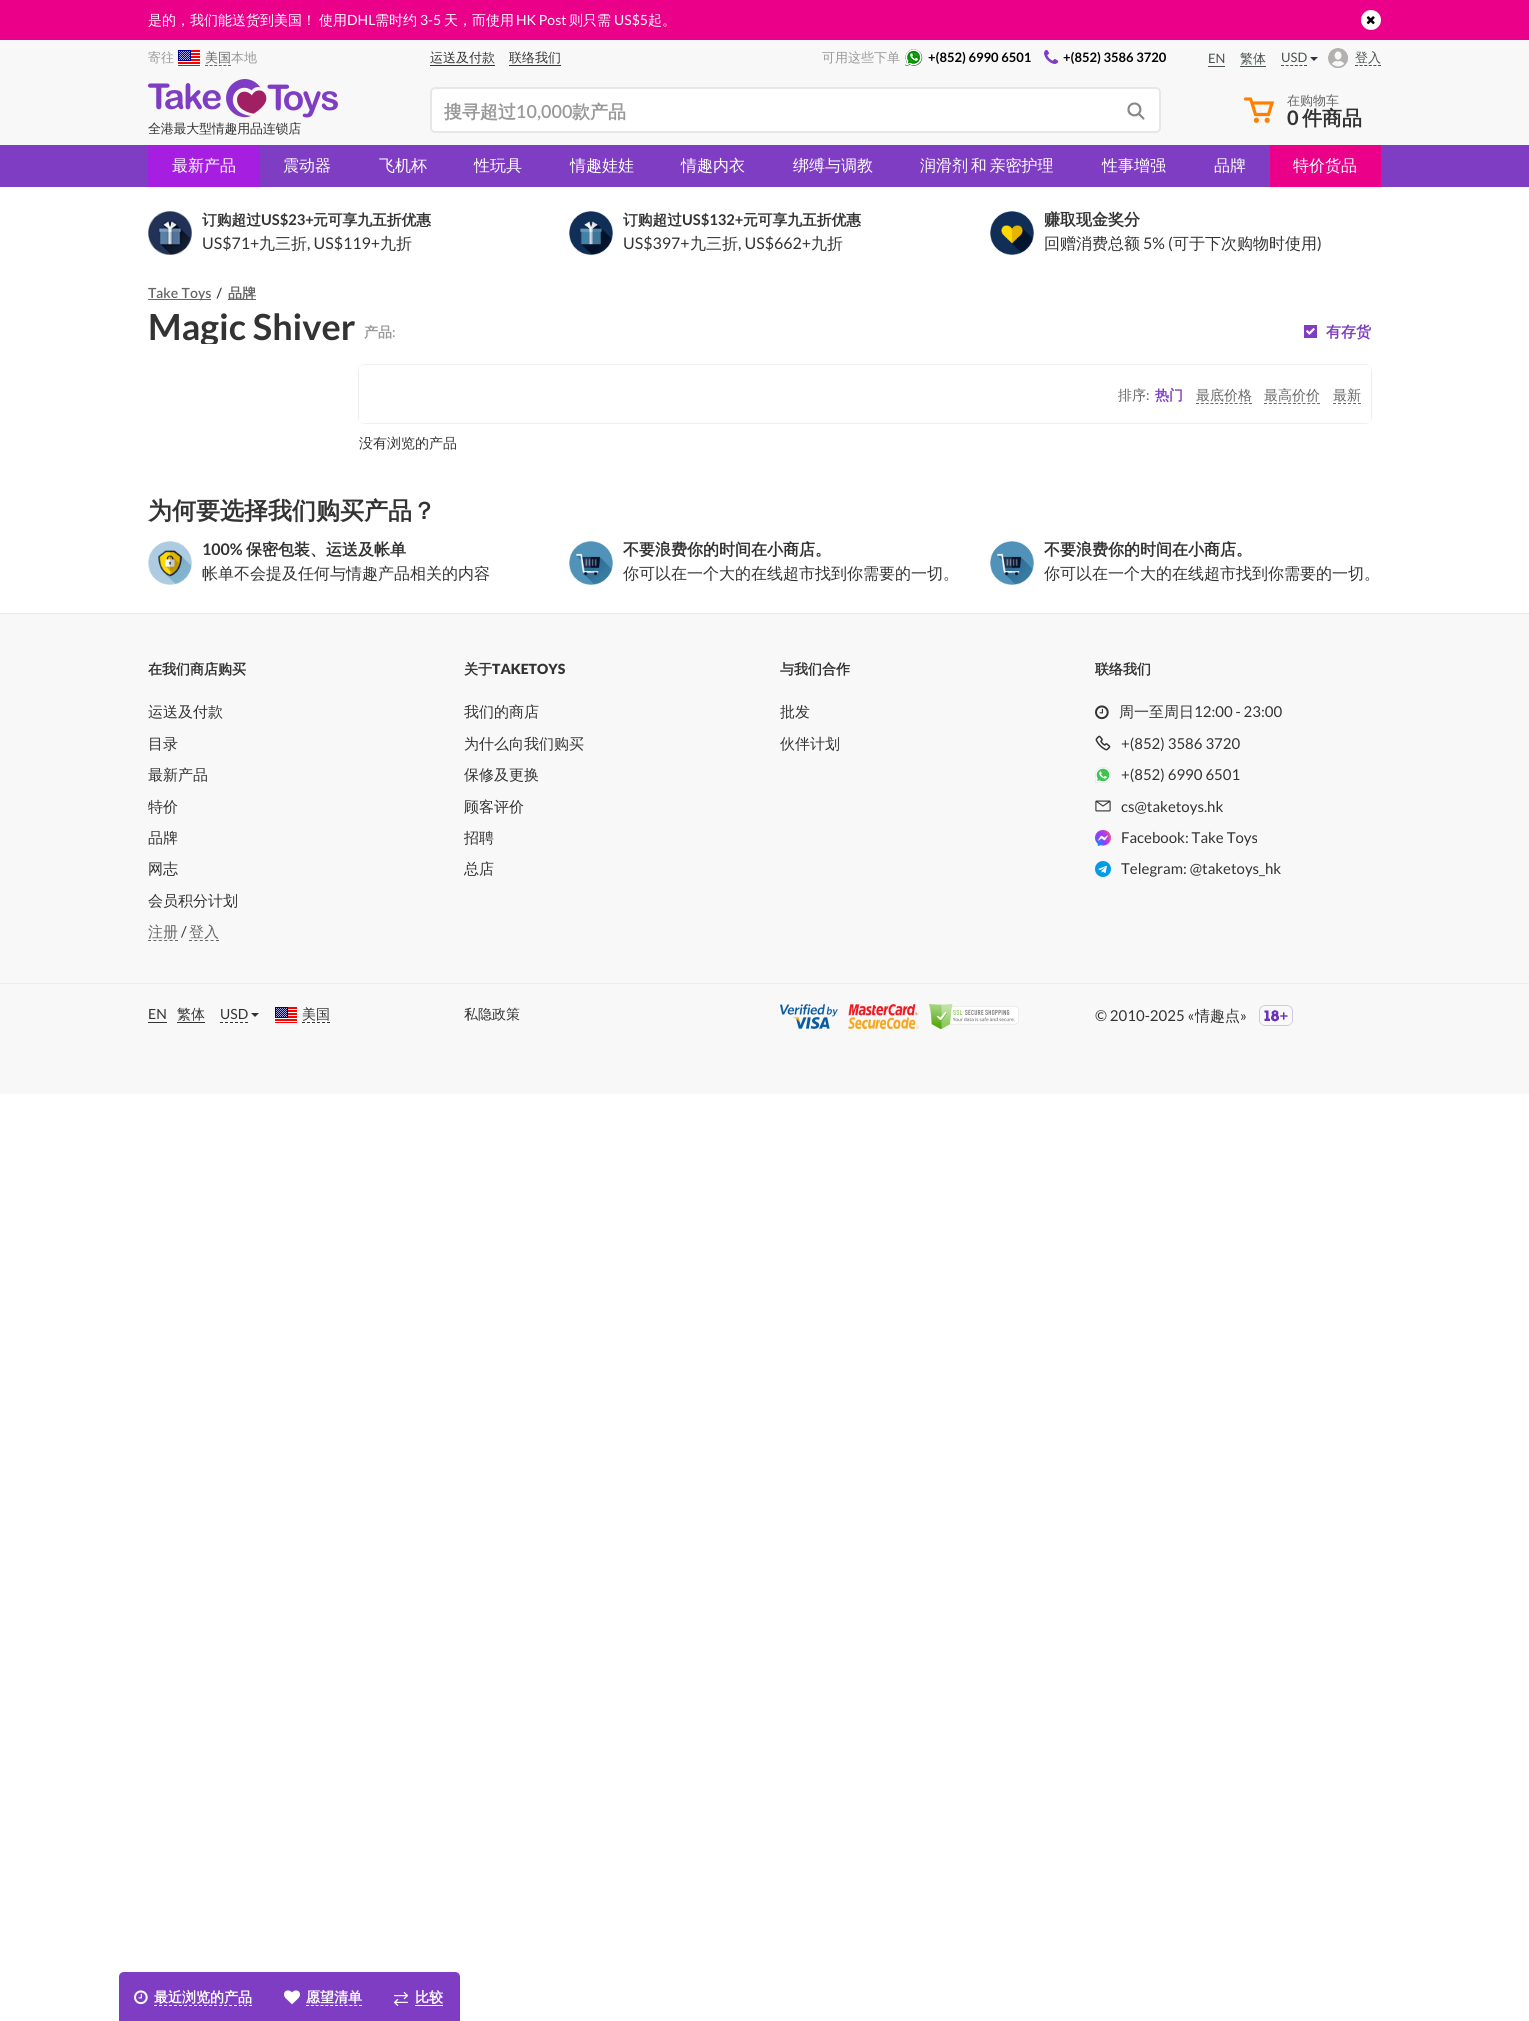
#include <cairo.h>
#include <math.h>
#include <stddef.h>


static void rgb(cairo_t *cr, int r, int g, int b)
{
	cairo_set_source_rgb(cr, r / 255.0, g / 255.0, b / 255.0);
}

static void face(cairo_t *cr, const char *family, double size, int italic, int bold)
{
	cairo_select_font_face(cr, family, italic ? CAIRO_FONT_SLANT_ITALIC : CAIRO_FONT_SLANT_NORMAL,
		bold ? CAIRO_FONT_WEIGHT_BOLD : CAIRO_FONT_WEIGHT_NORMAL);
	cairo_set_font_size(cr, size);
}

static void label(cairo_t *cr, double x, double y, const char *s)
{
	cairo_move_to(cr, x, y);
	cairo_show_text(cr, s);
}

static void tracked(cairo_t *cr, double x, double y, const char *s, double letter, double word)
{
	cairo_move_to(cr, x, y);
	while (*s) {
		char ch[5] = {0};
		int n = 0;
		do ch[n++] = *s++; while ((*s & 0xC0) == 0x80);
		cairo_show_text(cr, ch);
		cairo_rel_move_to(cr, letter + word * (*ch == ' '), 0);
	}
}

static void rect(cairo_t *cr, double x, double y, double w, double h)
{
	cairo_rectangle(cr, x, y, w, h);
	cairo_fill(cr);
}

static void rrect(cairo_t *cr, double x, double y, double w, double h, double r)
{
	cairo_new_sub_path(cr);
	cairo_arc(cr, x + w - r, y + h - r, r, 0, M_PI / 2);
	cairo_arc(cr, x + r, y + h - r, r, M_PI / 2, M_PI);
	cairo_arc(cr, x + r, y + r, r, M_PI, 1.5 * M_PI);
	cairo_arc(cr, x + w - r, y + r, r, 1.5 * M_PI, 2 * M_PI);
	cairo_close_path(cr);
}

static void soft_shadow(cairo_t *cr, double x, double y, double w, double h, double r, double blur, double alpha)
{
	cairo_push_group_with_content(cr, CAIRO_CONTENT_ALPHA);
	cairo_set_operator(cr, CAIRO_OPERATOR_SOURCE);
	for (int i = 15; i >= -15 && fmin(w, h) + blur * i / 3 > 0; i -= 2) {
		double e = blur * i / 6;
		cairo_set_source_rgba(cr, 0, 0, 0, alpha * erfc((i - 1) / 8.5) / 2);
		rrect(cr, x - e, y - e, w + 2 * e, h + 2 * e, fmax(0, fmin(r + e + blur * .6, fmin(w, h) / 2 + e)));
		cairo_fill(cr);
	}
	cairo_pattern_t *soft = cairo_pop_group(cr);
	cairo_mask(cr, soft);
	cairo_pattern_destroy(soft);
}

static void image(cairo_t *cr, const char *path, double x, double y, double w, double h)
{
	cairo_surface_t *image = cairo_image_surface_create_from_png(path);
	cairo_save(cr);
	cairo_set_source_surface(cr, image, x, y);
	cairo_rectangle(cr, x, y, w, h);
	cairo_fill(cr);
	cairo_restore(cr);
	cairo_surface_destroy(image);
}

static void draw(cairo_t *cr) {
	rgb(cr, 255, 255, 255);
	cairo_paint(cr);
	rgb(cr, 235, 0, 138);
	rect(cr, 0, 0, 1529, 40);
	face(cr, "WenQuanYi Zen Hei Medium", 14, 0, 0);
	rgb(cr, 255, 255, 255);
	label(cr, 148, 25, "是的，我们能送货到美国！");
	label(cr, 319, 25, "使用");
	face(cr, "Lato", 14, 0, 0);
	label(cr, 347, 25, "DHL");
	face(cr, "WenQuanYi Zen Hei Medium", 14, 0, 0);
	label(cr, 375, 25, "需时约");
	face(cr, "Lato", 14, 0, 0);
	label(cr, 420, 25, "3-5");
	face(cr, "WenQuanYi Zen Hei Medium", 14, 0, 0);
	label(cr, 444, 25, "天，而使用");
	face(cr, "Lato", 14, 0, 0);
	label(cr, 516, 25, "HK Post");
	face(cr, "WenQuanYi Zen Hei Medium", 14, 0, 0);
	label(cr, 569, 25, "则只需");
	face(cr, "Lato", 14, 0, 0);
	label(cr, 614, 25, "US$5");
	face(cr, "WenQuanYi Zen Hei Medium", 14, 0, 0);
	label(cr, 648, 25, "起。");
	cairo_new_path(cr);
	cairo_arc(cr, 1371, 20, 10, 0, 2 * M_PI);
	cairo_fill(cr);
	image(cr, "image0.png", 1366, 16, 9, 9);
	rgb(cr, 248, 248, 248);
	rect(cr, 0, 40, 1529, 105);
	face(cr, "WenQuanYi Zen Hei Medium", 13, 0, 0);
	rgb(cr, 153, 153, 153);
	label(cr, 148, 62, "寄往");
	image(cr, "image1.png", 178, 50, 22, 16);
	rgb(cr, 102, 102, 102);
	label(cr, 205, 62, "美国");
	cairo_new_path(cr);
	cairo_move_to(cr, 205, 65.5);
	cairo_line_to(cr, 231, 65.5);
	cairo_set_line_width(cr, 1);
	cairo_set_dash(cr, (double[]){3, 1.6}, 2, 0);
	cairo_stroke(cr);
	rgb(cr, 153, 153, 153);
	label(cr, 231, 62, "本地");
	rgb(cr, 51, 51, 51);
	label(cr, 430, 62, "运送及付款");
	rect(cr, 430, 65, 65, 1);
	label(cr, 509, 62, "联络我们");
	rect(cr, 509, 65, 52, 1);
	rgb(cr, 153, 153, 153);
	label(cr, 822, 62, "可用这些下单");
	image(cr, "image2.png", 905, 49, 18, 18);
	face(cr, "Lato", 13, 0, 1);
	rgb(cr, 0, 0, 0);
	label(cr, 928, 62, "+(852) 6990 6501");
	image(cr, "image3.png", 1044, 49, 15, 15);
	label(cr, 1063, 62, "+(852) 3586 3720");
	face(cr, "Lato", 13, 0, 0);
	rgb(cr, 74, 81, 82);
	label(cr, 1208, 63, "EN");
	rect(cr, 1208, 66, 17, 1);
	face(cr, "WenQuanYi Zen Hei Medium", 13, 0, 0);
	label(cr, 1240, 63, "繁体");
	rect(cr, 1240, 66, 26, 1);
	face(cr, "Lato", 13, 0, 0);
	label(cr, 1281, 62, "USD");
	cairo_new_path(cr);
	cairo_move_to(cr, 1281, 65.5);
	cairo_line_to(cr, 1307, 65.5);
	cairo_stroke(cr);
	rgb(cr, 48, 48, 66);
	cairo_new_path(cr);
	cairo_move_to(cr, 1310, 57);
	cairo_line_to(cr, 1318, 57);
	cairo_line_to(cr, 1314, 61);
	cairo_close_path(cr);
	cairo_fill(cr);
	image(cr, "image4.png", 1328, 48, 20, 20);
	face(cr, "WenQuanYi Zen Hei Medium", 13, 0, 0);
	rgb(cr, 74, 81, 82);
	label(cr, 1355, 62, "登入");
	cairo_new_path(cr);
	cairo_move_to(cr, 1355, 65.5);
	cairo_line_to(cr, 1381, 65.5);
	cairo_stroke(cr);
	rgb(cr, 255, 255, 255);
	rrect(cr, 431, 88, 729, 44, 4);
	cairo_fill_preserve(cr);
	rgb(cr, 231, 231, 231);
	cairo_set_line_width(cr, 2);
	cairo_set_dash(cr, NULL, 0, 0);
	cairo_stroke(cr);
	face(cr, "WenQuanYi Zen Hei", 18, 0, 1);
	rgb(cr, 153, 153, 153);
	label(cr, 444, 118, "搜寻超过");
	face(cr, "Lato SemiBold", 18, 0, 0);
	label(cr, 516, 118, "10,000");
	face(cr, "WenQuanYi Zen Hei", 18, 0, 1);
	label(cr, 572, 118, "款产品");
	image(cr, "image5.png", 1127, 102, 18, 18);
	cairo_new_path(cr);
	cairo_move_to(cr, 1245.5, 99);
	cairo_line_to(cr, 1250.5, 99);
	cairo_line_to(cr, 1252, 103);
	cairo_move_to(cr, 1252, 103);
	cairo_line_to(cr, 1255.5, 114.5);
	cairo_line_to(cr, 1268.5, 114.5);
	cairo_line_to(cr, 1272, 103);
	cairo_close_path(cr);
	rgb(cr, 255, 128, 0);
	cairo_set_line_width(cr, 3.2);
	cairo_set_line_cap(cr, CAIRO_LINE_CAP_ROUND);
	cairo_stroke(cr);
	cairo_arc(cr, 1256.4, 120.3, 2.6, 0, 2 * M_PI);
	cairo_fill(cr);
	cairo_arc(cr, 1267.2, 120.3, 2.6, 0, 2 * M_PI);
	cairo_fill(cr);
	face(cr, "WenQuanYi Zen Hei Medium", 13, 0, 0);
	rgb(cr, 102, 102, 102);
	label(cr, 1287, 105, "在购物车");
	face(cr, "Lato", 20, 0, 1);
	rgb(cr, 51, 51, 51);
	label(cr, 1287, 125, "0");
	face(cr, "WenQuanYi Zen Hei", 20, 0, 1);
	label(cr, 1302, 125, "件商品");
	image(cr, "image6.png", 148, 79, 190, 39);
	face(cr, "WenQuanYi Zen Hei Medium", 13, 0, 0);
	tracked(cr, 148, 133, "全港最大型情趣用品连锁店", -0.25, 0);
	rgb(cr, 127, 61, 195);
	rect(cr, 0, 145, 1529, 42);
	rgb(cr, 166, 31, 225);
	rect(cr, 148, 145, 112, 42);
	face(cr, "WenQuanYi Zen Hei Medium", 16, 0, 0);
	rgb(cr, 255, 255, 255);
	label(cr, 172, 171, "最新产品");
	label(cr, 283, 171, "震动器");
	label(cr, 379, 171, "飞机杯");
	label(cr, 474, 171, "性玩具");
	label(cr, 570, 171, "情趣娃娃");
	label(cr, 681, 171, "情趣内衣");
	label(cr, 793, 171, "绑缚与调教");
	tracked(cr, 920, 171, "润滑剂 和 亲密护理", 0, -2);
	label(cr, 1102, 171, "性事增强");
	label(cr, 1214, 171, "品牌");
	rgb(cr, 235, 0, 138);
	rect(cr, 1270, 145, 111, 42);
	rgb(cr, 255, 255, 255);
	label(cr, 1293, 171, "特价货品");
	image(cr, "image7.png", 148, 211, 44, 44);
	face(cr, "WenQuanYi Zen Hei", 14.75, 0, 1);
	rgb(cr, 51, 51, 51);
	label(cr, 202, 225, "订购超过");
	face(cr, "Lato", 14.75, 0, 1);
	label(cr, 261, 225, "US$23+");
	face(cr, "WenQuanYi Zen Hei", 14.75, 0, 1);
	label(cr, 313, 225, "元可享九五折优惠");
	face(cr, "Lato", 16, 0, 0);
	label(cr, 202, 249, "US$71+");
	face(cr, "WenQuanYi Zen Hei Medium", 16, 0, 0);
	label(cr, 259, 249, "九三折");
	face(cr, "Lato", 16, 0, 0);
	label(cr, 307, 249, ", US$119+");
	face(cr, "WenQuanYi Zen Hei Medium", 16, 0, 0);
	label(cr, 380, 249, "九折");
	image(cr, "image8.png", 569, 211, 44, 44);
	face(cr, "WenQuanYi Zen Hei", 14.75, 0, 1);
	label(cr, 623, 225, "订购超过");
	face(cr, "Lato", 14.75, 0, 1);
	label(cr, 682, 225, "US$132+");
	face(cr, "WenQuanYi Zen Hei", 14.75, 0, 1);
	label(cr, 743, 225, "元可享九五折优惠");
	face(cr, "Lato", 16, 0, 0);
	label(cr, 623, 249, "US$397+");
	face(cr, "WenQuanYi Zen Hei Medium", 16, 0, 0);
	label(cr, 690, 249, "九三折");
	face(cr, "Lato", 16, 0, 0);
	label(cr, 738, 249, ", US$662+");
	face(cr, "WenQuanYi Zen Hei Medium", 16, 0, 0);
	label(cr, 811, 249, "九折");
	image(cr, "image9.png", 990, 211, 44, 44);
	face(cr, "WenQuanYi Zen Hei", 16, 0, 1);
	label(cr, 1044, 225, "赚取现金奖分");
	face(cr, "WenQuanYi Zen Hei Medium", 16, 0, 0);
	label(cr, 1044, 249, "回赠消费总额");
	face(cr, "Lato", 16, 0, 0);
	label(cr, 1143, 249, "5% (");
	face(cr, "WenQuanYi Zen Hei Medium", 16, 0, 0);
	label(cr, 1173, 249, "可于下次购物时使用");
	face(cr, "Lato", 16, 0, 0);
	label(cr, 1317, 249, ")");
	rgb(cr, 102, 102, 102);
	rect(cr, 148, 299, 63, 1);
	face(cr, "Lato SemiBold", 14, 0, 0);
	label(cr, 148, 298, "Take Toys");
	rgb(cr, 51, 51, 51);
	label(cr, 216, 298, "/");
	rgb(cr, 102, 102, 102);
	rect(cr, 228, 299, 28, 1);
	face(cr, "WenQuanYi Zen Hei", 14, 0, 1);
	label(cr, 228, 298, "品牌");
	cairo_save(cr);
	cairo_rectangle(cr, 148, 308, 208, 36);
	cairo_clip(cr);
	face(cr, "Lato", 36, 0, 1);
	rgb(cr, 51, 51, 51);
	label(cr, 148, 340, "Magic Shiver");
	cairo_restore(cr);
	rgb(cr, 153, 153, 153);
	label(cr, 364, 337, "产品");
	face(cr, "Lato SemiBold", 14, 0, 0);
	label(cr, 392, 337, ":");
	rgb(cr, 127, 61, 195);
	rect(cr, 1304, 325, 13, 13);
	image(cr, "image10.png", 1306, 328, 9, 7);
	face(cr, "WenQuanYi Zen Hei", 15, 0, 1);
	label(cr, 1326, 337, "有存货");
	cairo_save(cr);
	cairo_set_fill_rule(cr, CAIRO_FILL_RULE_EVEN_ODD);
	cairo_new_path(cr);
	cairo_move_to(cr, 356, 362);
	cairo_line_to(cr, 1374, 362);
	cairo_line_to(cr, 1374, 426);
	cairo_line_to(cr, 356, 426);
	cairo_close_path(cr);
	cairo_move_to(cr, 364, 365);
	cairo_line_to(cr, 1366, 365);
	cairo_curve_to(cr, 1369, 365, 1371, 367, 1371, 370);
	cairo_line_to(cr, 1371, 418);
	cairo_curve_to(cr, 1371, 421, 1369, 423, 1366, 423);
	cairo_line_to(cr, 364, 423);
	cairo_curve_to(cr, 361, 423, 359, 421, 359, 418);
	cairo_line_to(cr, 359, 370);
	cairo_curve_to(cr, 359, 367, 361, 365, 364, 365);
	cairo_close_path(cr);
	cairo_clip(cr);
	rgb(cr, 0, 0, 0);
	soft_shadow(cr, 359, 365, 1012, 58, 5, 0.5, 0.25);
	cairo_restore(cr);
	face(cr, "WenQuanYi Zen Hei Medium", 14, 0, 0);
	rgb(cr, 102, 102, 102);
	label(cr, 1118, 400, "排序");
	face(cr, "Lato", 14, 0, 0);
	label(cr, 1146, 400, ":");
	face(cr, "WenQuanYi Zen Hei", 14, 0, 1);
	rgb(cr, 127, 61, 195);
	label(cr, 1155, 400, "热门");
	face(cr, "WenQuanYi Zen Hei Medium", 14, 0, 0);
	rgb(cr, 102, 102, 102);
	label(cr, 1196, 400, "最底价格");
	cairo_new_path(cr);
	cairo_move_to(cr, 1196, 403.5);
	cairo_line_to(cr, 1252, 403.5);
	cairo_set_line_width(cr, 1);
	cairo_set_line_cap(cr, CAIRO_LINE_CAP_BUTT);
	cairo_set_dash(cr, (double[]){3, 1.82}, 2, 0);
	cairo_stroke(cr);
	label(cr, 1264, 400, "最高价价");
	cairo_new_path(cr);
	cairo_move_to(cr, 1264, 403.5);
	cairo_line_to(cr, 1320, 403.5);
	cairo_stroke(cr);
	label(cr, 1333, 400, "最新");
	cairo_new_path(cr);
	cairo_move_to(cr, 1333, 403.5);
	cairo_line_to(cr, 1361, 403.5);
	cairo_set_dash(cr, (double[]){3, 2}, 2, 0);
	cairo_stroke(cr);
	rgb(cr, 51, 51, 51);
	label(cr, 359, 448, "没有浏览的产品");
	face(cr, "WenQuanYi Zen Hei", 24, 0, 1);
	label(cr, 148, 519, "为何要选择我们购买产品？");
	image(cr, "image11.png", 148, 541, 44, 44);
	face(cr, "Lato", 16, 0, 1);
	label(cr, 202, 555, "100%");
	face(cr, "WenQuanYi Zen Hei", 16, 0, 1);
	label(cr, 246, 555, "保密包装、运送及帐单");
	face(cr, "WenQuanYi Zen Hei Medium", 16, 0, 0);
	label(cr, 202, 579, "帐单不会提及任何与情趣产品相关的内容");
	image(cr, "image12.png", 569, 541, 44, 44);
	face(cr, "WenQuanYi Zen Hei", 16, 0, 1);
	label(cr, 623, 555, "不要浪费你的时间在小商店。");
	face(cr, "WenQuanYi Zen Hei Medium", 16, 0, 0);
	label(cr, 623, 579, "你可以在一个大的在线超市找到你需要的一切。");
	image(cr, "image12.png", 990, 541, 44, 44);
	face(cr, "WenQuanYi Zen Hei", 16, 0, 1);
	label(cr, 1044, 555, "不要浪费你的时间在小商店。");
	face(cr, "WenQuanYi Zen Hei Medium", 16, 0, 0);
	label(cr, 1044, 579, "你可以在一个大的在线超市找到你需要的一切。");
	rgb(cr, 248, 248, 248);
	rect(cr, 0, 614, 1529, 480);
	rgb(cr, 232, 232, 232);
	rect(cr, 0, 613, 1529, 1);
	face(cr, "WenQuanYi Zen Hei", 14, 0, 1);
	rgb(cr, 51, 51, 51);
	label(cr, 148, 674, "在我们商店购买");
	face(cr, "WenQuanYi Zen Hei Medium", 15, 0, 0);
	label(cr, 148, 717, "运送及付款");
	label(cr, 148, 749, "目录");
	label(cr, 148, 780, "最新产品");
	label(cr, 148, 812, "特价");
	label(cr, 148, 843, "品牌");
	label(cr, 148, 874, "网志");
	label(cr, 148, 906, "会员积分计划");
	rgb(cr, 102, 102, 102);
	label(cr, 148, 937, "注册");
	cairo_new_path(cr);
	cairo_move_to(cr, 148, 940.5);
	cairo_line_to(cr, 178, 940.5);
	cairo_set_dash(cr, (double[]){3, 2.4}, 2, 0);
	cairo_stroke(cr);
	face(cr, "Lato", 15, 0, 0);
	rgb(cr, 51, 51, 51);
	label(cr, 181, 937, "/");
	face(cr, "WenQuanYi Zen Hei Medium", 15, 0, 0);
	rgb(cr, 102, 102, 102);
	label(cr, 189, 937, "登入");
	cairo_new_path(cr);
	cairo_move_to(cr, 189, 940.5);
	cairo_line_to(cr, 219, 940.5);
	cairo_stroke(cr);
	face(cr, "WenQuanYi Zen Hei", 14, 0, 1);
	rgb(cr, 51, 51, 51);
	label(cr, 464, 674, "关于");
	face(cr, "Lato Black", 14, 0, 0);
	label(cr, 492, 674, "TAKETOYS");
	face(cr, "WenQuanYi Zen Hei Medium", 15, 0, 0);
	label(cr, 464, 717, "我们的商店");
	label(cr, 464, 749, "为什么向我们购买");
	label(cr, 464, 780, "保修及更换");
	label(cr, 464, 812, "顾客评价");
	label(cr, 464, 843, "招聘");
	label(cr, 464, 874, "总店");
	face(cr, "WenQuanYi Zen Hei", 14, 0, 1);
	label(cr, 780, 674, "与我们合作");
	face(cr, "WenQuanYi Zen Hei Medium", 15, 0, 0);
	label(cr, 780, 717, "批发");
	label(cr, 780, 749, "伙伴计划");
	face(cr, "WenQuanYi Zen Hei", 14, 0, 1);
	label(cr, 1095, 674, "联络我们");
	image(cr, "image13.png", 1095, 705, 14, 15);
	face(cr, "WenQuanYi Zen Hei Medium", 15, 0, 0);
	label(cr, 1119, 717, "周一至周日");
	face(cr, "Lato", 15, 0, 0);
	label(cr, 1194, 717, "12:00 - 23:00");
	image(cr, "image14.png", 1095, 735, 16, 16);
	label(cr, 1121, 749, "+(852) 3586 3720");
	image(cr, "image15.png", 1095, 767, 16, 16);
	label(cr, 1121, 780, "+(852) 6990 6501");
	image(cr, "image16.png", 1095, 800, 16, 12);
	label(cr, 1121, 812, "cs@taketoys.hk");
	image(cr, "image17.png", 1095, 830, 16, 16);
	label(cr, 1121, 843, "Facebook: Take Toys");
	image(cr, "image18.png", 1095, 861, 16, 16);
	label(cr, 1121, 874, "Telegram: @taketoys_hk");
	rgb(cr, 236, 236, 236);
	rect(cr, 0, 983, 1529, 1);
	face(cr, "Lato", 14, 0, 0);
	rgb(cr, 51, 51, 51);
	label(cr, 148, 1019, "EN");
	rect(cr, 148, 1022, 19, 1);
	face(cr, "WenQuanYi Zen Hei Medium", 14, 0, 0);
	label(cr, 177, 1019, "繁体");
	rect(cr, 177, 1022, 28, 1);
	face(cr, "Lato", 14, 0, 0);
	label(cr, 220, 1019, "USD");
	cairo_new_path(cr);
	cairo_move_to(cr, 220, 1022.5);
	cairo_line_to(cr, 248, 1022.5);
	cairo_set_dash(cr, (double[]){3, 2}, 2, 0);
	cairo_stroke(cr);
	rgb(cr, 48, 48, 66);
	cairo_new_path(cr);
	cairo_move_to(cr, 251, 1013);
	cairo_line_to(cr, 259, 1013);
	cairo_line_to(cr, 255, 1017);
	cairo_close_path(cr);
	cairo_fill(cr);
	image(cr, "image1.png", 275, 1007, 22, 16);
	face(cr, "WenQuanYi Zen Hei Medium", 14, 0, 0);
	rgb(cr, 51, 51, 51);
	label(cr, 302, 1019, "美国");
	cairo_new_path(cr);
	cairo_move_to(cr, 302, 1022.5);
	cairo_line_to(cr, 330, 1022.5);
	cairo_stroke(cr);
	label(cr, 464, 1019, "私隐政策");
	image(cr, "image19.png", 780, 1004, 58, 25);
	image(cr, "image20.png", 848, 1004, 71, 25);
	image(cr, "image21.png", 929, 1004, 90, 25);
	face(cr, "Lato", 15, 0, 0);
	label(cr, 1095, 1021, "© 2010-2025 «");
	face(cr, "WenQuanYi Zen Hei Medium", 15, 0, 0);
	label(cr, 1195, 1021, "情趣点");
	face(cr, "Lato", 15, 0, 0);
	label(cr, 1240, 1021, "»");
	image(cr, "image22.png", 1259, 1005, 34, 21);
	rgb(cr, 127, 61, 195);
	cairo_new_path(cr);
	cairo_move_to(cr, 124, 1972);
	cairo_line_to(cr, 269, 1972);
	cairo_line_to(cr, 269, 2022);
	cairo_line_to(cr, 119, 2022);
	cairo_line_to(cr, 119, 1977);
	cairo_curve_to(cr, 119, 1974, 121, 1972, 124, 1972);
	cairo_close_path(cr);
	cairo_fill(cr);
	image(cr, "image23.png", 134, 1990, 14, 15);
	face(cr, "WenQuanYi Zen Hei", 14, 0, 1);
	rgb(cr, 255, 255, 255);
	label(cr, 154, 2002, "最近浏览的产品");
	cairo_new_path(cr);
	cairo_move_to(cr, 154, 2005.5);
	cairo_line_to(cr, 252, 2005.5);
	cairo_stroke(cr);
	rgb(cr, 127, 61, 195);
	rect(cr, 269, 1972, 110, 49);
	image(cr, "image24.png", 284, 1990, 16, 15);
	rgb(cr, 255, 255, 255);
	label(cr, 306, 2002, "愿望清单");
	cairo_new_path(cr);
	cairo_move_to(cr, 306, 2005.5);
	cairo_line_to(cr, 362, 2005.5);
	cairo_set_dash(cr, (double[]){3, 1.82}, 2, 0);
	cairo_stroke(cr);
	rgb(cr, 127, 61, 195);
	cairo_new_path(cr);
	cairo_move_to(cr, 379, 1972);
	cairo_line_to(cr, 455, 1972);
	cairo_curve_to(cr, 458, 1972, 460, 1974, 460, 1977);
	cairo_line_to(cr, 460, 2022);
	cairo_line_to(cr, 379, 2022);
	cairo_close_path(cr);
	cairo_fill(cr);
	image(cr, "image25.png", 394, 1992, 14, 14);
	rgb(cr, 255, 255, 255);
	label(cr, 415, 2002, "比较");
	rect(cr, 415, 2005, 28, 1);
}

int main(void) {
	cairo_surface_t *surface = cairo_image_surface_create(CAIRO_FORMAT_RGB24, 1529, 2021);
	cairo_t *cr = cairo_create(surface);
	cairo_font_options_t *options = cairo_font_options_create();
	cairo_font_options_set_hint_metrics(options, CAIRO_HINT_METRICS_OFF);
	cairo_font_options_set_hint_style(options, CAIRO_HINT_STYLE_NONE);
	cairo_set_font_options(cr, options);
	cairo_set_miter_limit(cr, 4);
	draw(cr);
	cairo_surface_write_to_png(surface, "render.png");
	cairo_font_options_destroy(options);
	cairo_destroy(cr);
	cairo_surface_destroy(surface);
	return 0;
}
